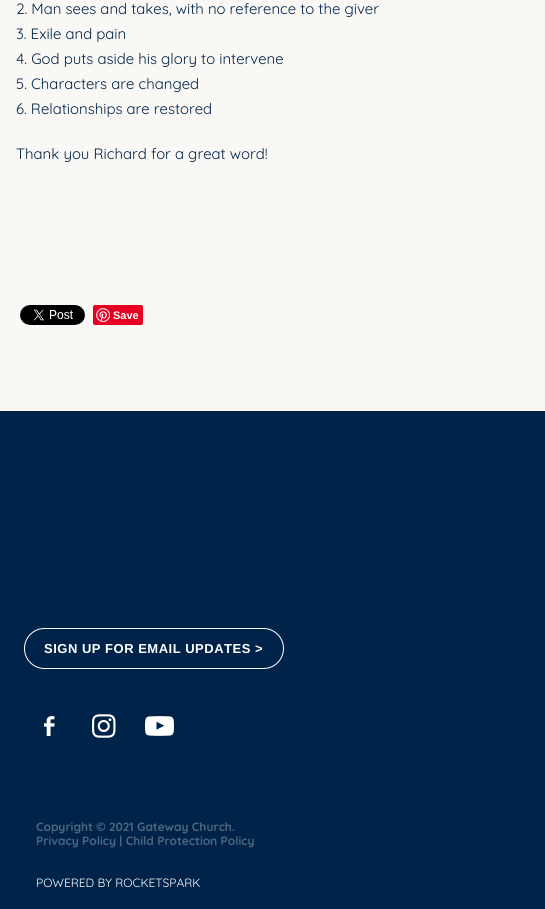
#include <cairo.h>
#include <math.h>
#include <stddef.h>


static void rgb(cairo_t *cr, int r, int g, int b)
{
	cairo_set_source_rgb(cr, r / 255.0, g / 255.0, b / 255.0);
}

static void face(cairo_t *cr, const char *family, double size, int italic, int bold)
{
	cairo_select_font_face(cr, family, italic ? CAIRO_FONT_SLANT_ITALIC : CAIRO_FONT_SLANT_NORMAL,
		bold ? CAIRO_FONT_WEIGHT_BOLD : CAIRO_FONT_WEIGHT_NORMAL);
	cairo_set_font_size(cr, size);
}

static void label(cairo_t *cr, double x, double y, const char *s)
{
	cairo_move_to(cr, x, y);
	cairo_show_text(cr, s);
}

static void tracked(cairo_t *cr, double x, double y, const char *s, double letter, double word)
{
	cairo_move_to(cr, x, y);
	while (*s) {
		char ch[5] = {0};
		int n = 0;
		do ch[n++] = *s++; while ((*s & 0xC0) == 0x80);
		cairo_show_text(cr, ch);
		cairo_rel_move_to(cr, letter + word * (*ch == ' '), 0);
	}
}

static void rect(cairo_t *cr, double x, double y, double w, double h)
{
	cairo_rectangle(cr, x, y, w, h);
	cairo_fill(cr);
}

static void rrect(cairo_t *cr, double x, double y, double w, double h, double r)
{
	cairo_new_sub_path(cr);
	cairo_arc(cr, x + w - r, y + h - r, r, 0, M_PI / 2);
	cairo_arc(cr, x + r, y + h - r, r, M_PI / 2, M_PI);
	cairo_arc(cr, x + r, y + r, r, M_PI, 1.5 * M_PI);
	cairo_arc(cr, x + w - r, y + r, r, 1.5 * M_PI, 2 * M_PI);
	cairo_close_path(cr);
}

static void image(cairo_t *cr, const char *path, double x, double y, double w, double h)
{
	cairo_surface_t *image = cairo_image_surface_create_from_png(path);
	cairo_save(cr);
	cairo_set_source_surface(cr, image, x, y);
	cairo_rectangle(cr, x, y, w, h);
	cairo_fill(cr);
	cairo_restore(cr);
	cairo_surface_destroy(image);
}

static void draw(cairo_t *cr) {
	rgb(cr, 250, 248, 245);
	cairo_paint(cr);
	face(cr, "Quicksand", 15, 0, 0);
	rgb(cr, 0, 35, 73);
	label(cr, 16, 14, "2. Man sees and takes, with no reference to the giver");
	label(cr, 16, 39, "3. Exile and pain");
	label(cr, 16, 64, "4. God puts aside his glory to intervene");
	label(cr, 16, 89, "5. Characters are changed");
	label(cr, 16, 114, "6. Relationships are restored");
	label(cr, 16, 159, "Thank you Richard for a great word!");
	image(cr, "image0.png", 20, 305, 65, 20);
	rgb(cr, 230, 0, 35);
	rrect(cr, 93, 305, 50, 20, 2);
	cairo_fill(cr);
	image(cr, "image1.png", 96, 308, 14, 14);
	face(cr, "Liberation Sans", 11, 0, 1);
	rgb(cr, 255, 255, 255);
	label(cr, 113, 319, "Save");
	rgb(cr, 0, 35, 73);
	rect(cr, 0, 411, 545, 498);
	rrect(cr, 24.5, 628.5, 259, 40, 20);
	rgb(cr, 255, 255, 255);
	cairo_set_line_width(cr, 1);
	cairo_stroke(cr);
	face(cr, "Liberation Sans", 13, 0, 1);
	tracked(cr, 44, 653, "SIGN UP FOR EMAIL UPDATES >", 0.5, 0);
	image(cr, "image2.png", 44, 716, 11, 20);
	image(cr, "image3.png", 92, 714, 24, 24);
	image(cr, "image4.png", 145, 716, 29, 20);
	face(cr, "Quicksand", 12, 0, 1);
	rgb(cr, 77, 101, 128);
	label(cr, 36, 831, "Copyright © 2021 Gateway Church.");
	label(cr, 36, 845, "Privacy Policy | Child Protection Policy");
	face(cr, "Quicksand", 12, 0, 0);
	rgb(cr, 255, 255, 255);
	label(cr, 36, 887, "POWERED BY ROCKETSPARK");
}

int main(void) {
	cairo_surface_t *surface = cairo_image_surface_create(CAIRO_FORMAT_RGB24, 545, 909);
	cairo_t *cr = cairo_create(surface);
	cairo_font_options_t *options = cairo_font_options_create();
	cairo_font_options_set_hint_metrics(options, CAIRO_HINT_METRICS_OFF);
	cairo_font_options_set_hint_style(options, CAIRO_HINT_STYLE_NONE);
	cairo_set_font_options(cr, options);
	cairo_set_miter_limit(cr, 4);
	draw(cr);
	cairo_surface_write_to_png(surface, "render.png");
	cairo_font_options_destroy(options);
	cairo_destroy(cr);
	cairo_surface_destroy(surface);
	return 0;
}
